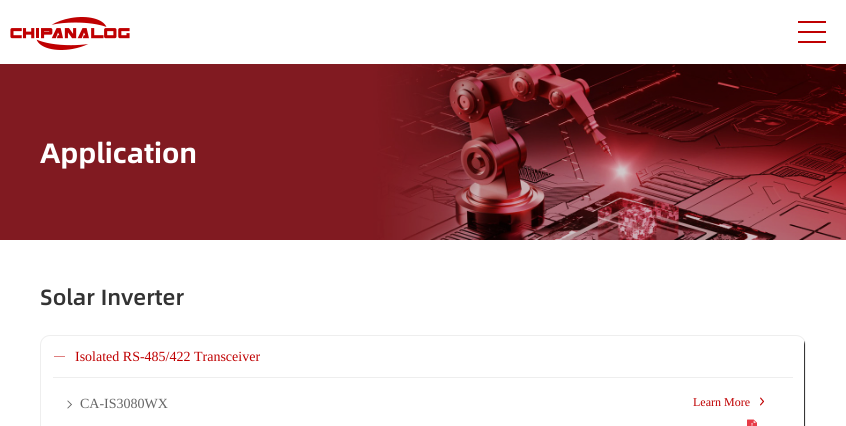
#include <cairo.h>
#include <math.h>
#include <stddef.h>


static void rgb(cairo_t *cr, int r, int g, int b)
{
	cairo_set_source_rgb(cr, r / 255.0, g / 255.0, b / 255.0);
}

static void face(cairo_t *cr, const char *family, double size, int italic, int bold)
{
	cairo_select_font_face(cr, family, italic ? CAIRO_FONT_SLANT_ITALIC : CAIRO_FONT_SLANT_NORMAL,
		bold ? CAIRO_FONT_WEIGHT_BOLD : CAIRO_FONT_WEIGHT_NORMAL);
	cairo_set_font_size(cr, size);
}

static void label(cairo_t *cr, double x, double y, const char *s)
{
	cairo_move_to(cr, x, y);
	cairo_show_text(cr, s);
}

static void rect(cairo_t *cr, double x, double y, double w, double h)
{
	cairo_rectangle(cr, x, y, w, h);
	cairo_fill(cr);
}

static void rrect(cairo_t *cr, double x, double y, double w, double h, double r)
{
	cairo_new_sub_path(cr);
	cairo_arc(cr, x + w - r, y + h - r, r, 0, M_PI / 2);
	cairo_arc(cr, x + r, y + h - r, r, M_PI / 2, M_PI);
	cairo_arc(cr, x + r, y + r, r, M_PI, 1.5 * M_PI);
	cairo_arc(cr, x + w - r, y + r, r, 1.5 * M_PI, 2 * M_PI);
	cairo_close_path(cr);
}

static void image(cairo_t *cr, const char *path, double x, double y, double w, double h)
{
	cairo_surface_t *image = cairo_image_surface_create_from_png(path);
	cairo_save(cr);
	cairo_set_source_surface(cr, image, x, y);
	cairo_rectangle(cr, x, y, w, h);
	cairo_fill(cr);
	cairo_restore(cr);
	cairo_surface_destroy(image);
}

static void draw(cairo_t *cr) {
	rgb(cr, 255, 255, 255);
	cairo_paint(cr);
	image(cr, "image0.png", 10, 17, 120, 33);
	rgb(cr, 191, 0, 1);
	rect(cr, 798, 21, 28, 2);
	rect(cr, 798, 31, 28, 2);
	rect(cr, 798, 41, 28, 2);
	image(cr, "image1.png", 0, 64, 846, 176);
	face(cr, "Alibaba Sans", 28, 0, 1);
	rgb(cr, 255, 255, 255);
	label(cr, 40, 163, "Application");
	face(cr, "Alibaba Sans Medium", 22, 0, 0);
	rgb(cr, 51, 51, 51);
	label(cr, 40, 305, "Solar Inverter");
	rrect(cr, 40.5, 335.5, 765, 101, 9.5);
	rgb(cr, 238, 238, 238);
	cairo_set_line_width(cr, 1);
	cairo_stroke(cr);
	rect(cr, 53, 377, 740, 1);
	rgb(cr, 191, 0, 1);
	cairo_new_path(cr);
	cairo_move_to(cr, 54, 356.5);
	cairo_line_to(cr, 65, 356.5);
	cairo_line_to(cr, 65, 357);
	cairo_line_to(cr, 54, 357);
	cairo_close_path(cr);
	cairo_fill(cr);
	face(cr, "Liberation Serif", 14, 0, 0);
	label(cr, 75, 361, "Isolated RS-485/422 Transceiver");
	image(cr, "image2.png", 67, 400, 5, 9);
	rgb(cr, 102, 102, 102);
	label(cr, 80, 408, "CA-IS3080WX");
	face(cr, "Liberation Serif", 12, 0, 0);
	rgb(cr, 191, 0, 1);
	label(cr, 693, 406, "Learn More");
	image(cr, "image3.png", 760, 397, 4, 9);
	image(cr, "image4.png", 747, 419, 10, 7);
	cairo_save(cr);
	rrect(cr, 41, 336, 764, 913, 9);
	cairo_clip(cr);
	cairo_set_source_rgba(cr, 0, 0, 0, 0.15);
	cairo_new_path(cr);
	cairo_move_to(cr, 805, 336);
	cairo_line_to(cr, 805, 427);
	cairo_curve_to(cr, 804.5, 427, 804, 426.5, 804, 426);
	cairo_line_to(cr, 804, 337);
	cairo_curve_to(cr, 804, 336.5, 804.5, 336, 805, 336);
	cairo_close_path(cr);
	cairo_fill(cr);
	cairo_set_source_rgba(cr, 0, 0, 0, 0.75);
	cairo_new_path(cr);
	cairo_move_to(cr, 805, 336);
	cairo_line_to(cr, 805, 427);
	cairo_curve_to(cr, 804.5, 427, 804, 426.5, 804, 426);
	cairo_line_to(cr, 804, 337);
	cairo_curve_to(cr, 804, 336.5, 804.5, 336, 805, 336);
	cairo_close_path(cr);
	cairo_fill(cr);
	cairo_restore(cr);
}

int main(void) {
	cairo_surface_t *surface = cairo_image_surface_create(CAIRO_FORMAT_RGB24, 846, 426);
	cairo_t *cr = cairo_create(surface);
	cairo_font_options_t *options = cairo_font_options_create();
	cairo_font_options_set_hint_metrics(options, CAIRO_HINT_METRICS_OFF);
	cairo_font_options_set_hint_style(options, CAIRO_HINT_STYLE_NONE);
	cairo_set_font_options(cr, options);
	cairo_set_miter_limit(cr, 4);
	draw(cr);
	cairo_surface_write_to_png(surface, "render.png");
	cairo_font_options_destroy(options);
	cairo_destroy(cr);
	cairo_surface_destroy(surface);
	return 0;
}
